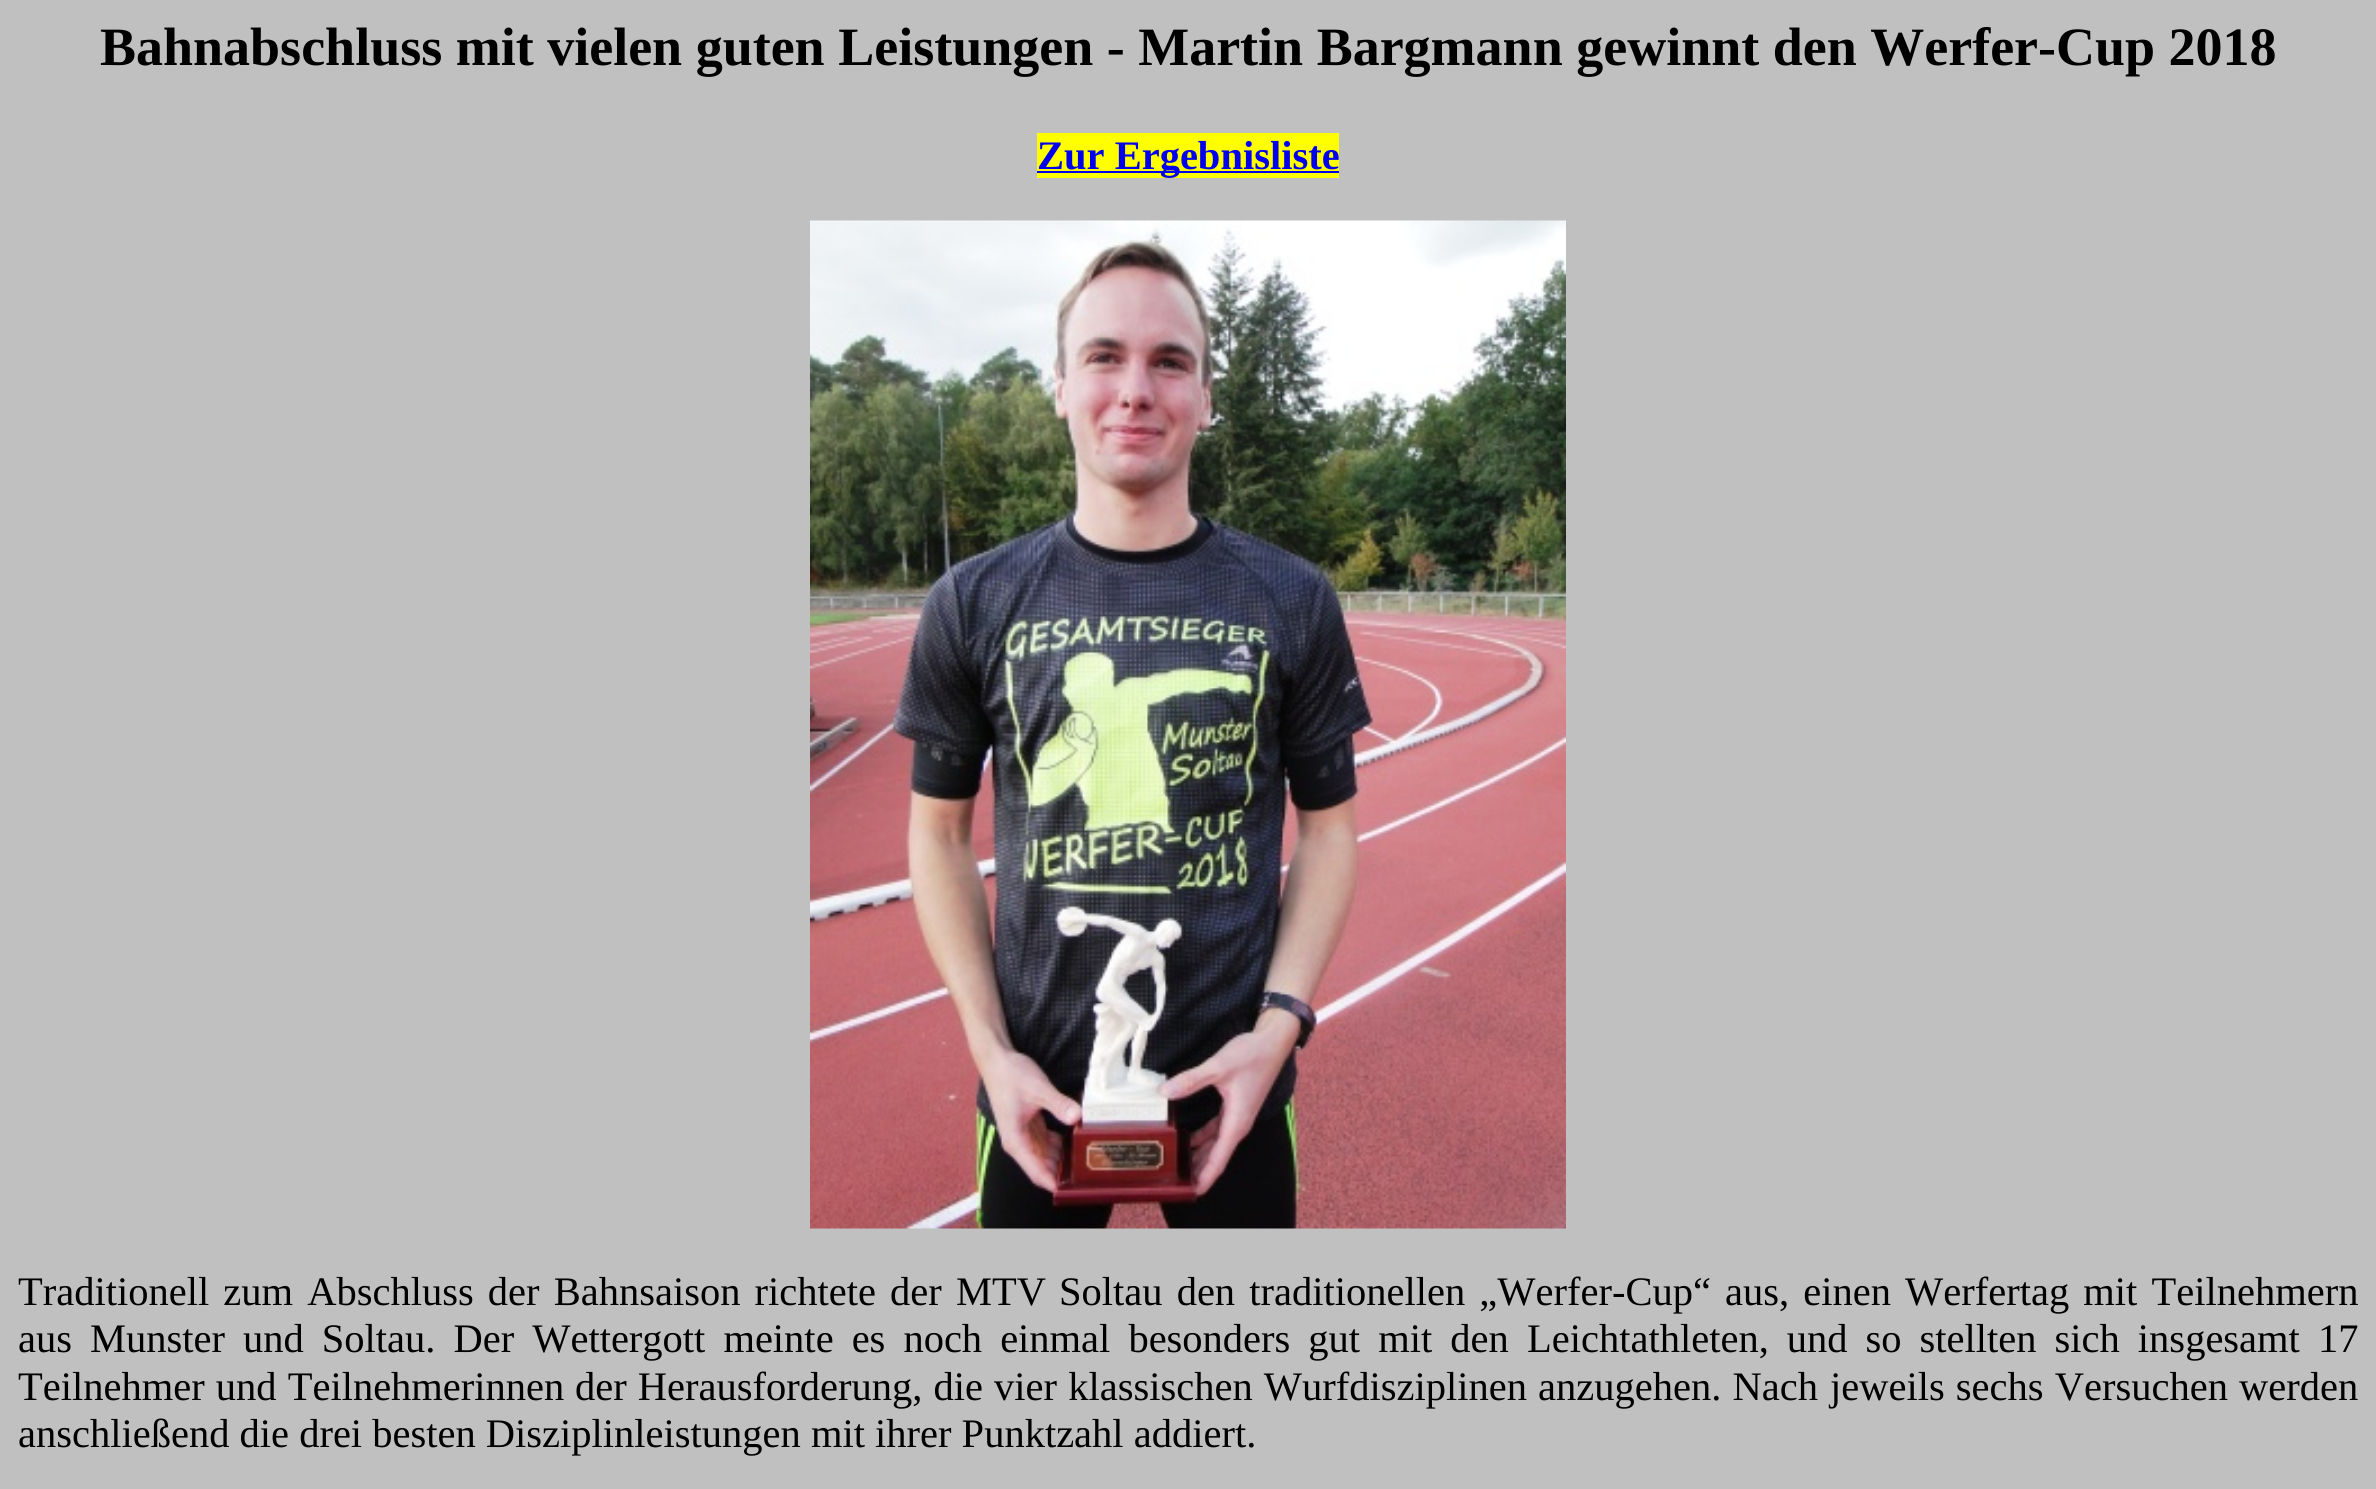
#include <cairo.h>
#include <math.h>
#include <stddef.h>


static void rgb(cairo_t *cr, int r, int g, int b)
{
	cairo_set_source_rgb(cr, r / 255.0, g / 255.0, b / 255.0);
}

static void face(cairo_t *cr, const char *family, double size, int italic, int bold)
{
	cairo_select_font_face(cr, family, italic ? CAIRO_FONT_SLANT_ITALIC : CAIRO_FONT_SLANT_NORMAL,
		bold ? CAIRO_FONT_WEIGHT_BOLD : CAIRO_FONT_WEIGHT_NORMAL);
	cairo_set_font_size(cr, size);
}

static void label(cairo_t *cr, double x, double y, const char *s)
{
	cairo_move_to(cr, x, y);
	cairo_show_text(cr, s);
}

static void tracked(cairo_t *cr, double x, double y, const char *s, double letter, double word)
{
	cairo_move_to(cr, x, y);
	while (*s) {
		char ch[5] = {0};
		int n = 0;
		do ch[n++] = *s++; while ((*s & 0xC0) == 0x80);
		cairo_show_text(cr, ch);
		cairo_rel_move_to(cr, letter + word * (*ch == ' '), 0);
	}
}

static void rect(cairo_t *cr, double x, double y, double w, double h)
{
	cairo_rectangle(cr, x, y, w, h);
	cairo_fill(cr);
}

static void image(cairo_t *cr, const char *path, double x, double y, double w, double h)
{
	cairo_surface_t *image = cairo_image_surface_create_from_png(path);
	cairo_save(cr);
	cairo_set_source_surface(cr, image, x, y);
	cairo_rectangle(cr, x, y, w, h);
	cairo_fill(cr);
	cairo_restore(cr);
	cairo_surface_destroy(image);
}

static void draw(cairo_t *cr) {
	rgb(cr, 192, 192, 192);
	cairo_paint(cr);
	face(cr, "Liberation Serif", 54, 0, 1);
	rgb(cr, 0, 0, 0);
	label(cr, 100, 65, "Bahnabschluss mit vielen guten Leistungen - Martin Bargmann gewinnt den Werfer-Cup 2018");
	rgb(cr, 255, 255, 0);
	rect(cr, 1037, 133, 302, 45);
	rgb(cr, 0, 0, 238);
	rect(cr, 1037, 171, 302, 2);
	face(cr, "Liberation Serif", 40.5, 0, 1);
	label(cr, 1037, 169, "Zur Ergebnisliste");
	image(cr, "image0.png", 810, 220, 756, 1009);
	face(cr, "Liberation Serif", 40.5, 0, 0);
	rgb(cr, 0, 0, 0);
	tracked(cr, 18, 1305, "Traditionell zum Abschluss der Bahnsaison richtete der MTV", 0, 4);
	tracked(cr, 1059, 1305, "Soltau den traditionellen „Werfer-Cup“ aus, einen Werfertag mit Teilnehmern", 0, 4);
	label(cr, 18, 1352, "aus");
	tracked(cr, 90, 1352, "Munster und Soltau. Der Wettergott meinte es noch einmal besonders gut mit den", 0, 7.9);
	tracked(cr, 1527, 1352, "Leichtathleten, und so stellten sich insgesamt 17", 0, 7.9);
	tracked(cr, 18, 1400, "Teilnehmer und Teilnehmerinnen", 0, 1);
	tracked(cr, 575, 1400, "der Herausforderung, die vier klassischen Wurfdisziplinen anzugehen. Nach", 0, 1);
	tracked(cr, 1830, 1400, "jeweils sechs Versuchen werden", 0, 1);
	label(cr, 18, 1447, "anschließend die drei besten Disziplinleistungen mit ihrer Punktzahl addiert.");
}

int main(void) {
	cairo_surface_t *surface = cairo_image_surface_create(CAIRO_FORMAT_RGB24, 2376, 1489);
	cairo_t *cr = cairo_create(surface);
	cairo_font_options_t *options = cairo_font_options_create();
	cairo_font_options_set_hint_metrics(options, CAIRO_HINT_METRICS_OFF);
	cairo_font_options_set_hint_style(options, CAIRO_HINT_STYLE_NONE);
	cairo_set_font_options(cr, options);
	cairo_set_miter_limit(cr, 4);
	draw(cr);
	cairo_surface_write_to_png(surface, "render.png");
	cairo_font_options_destroy(options);
	cairo_destroy(cr);
	cairo_surface_destroy(surface);
	return 0;
}
